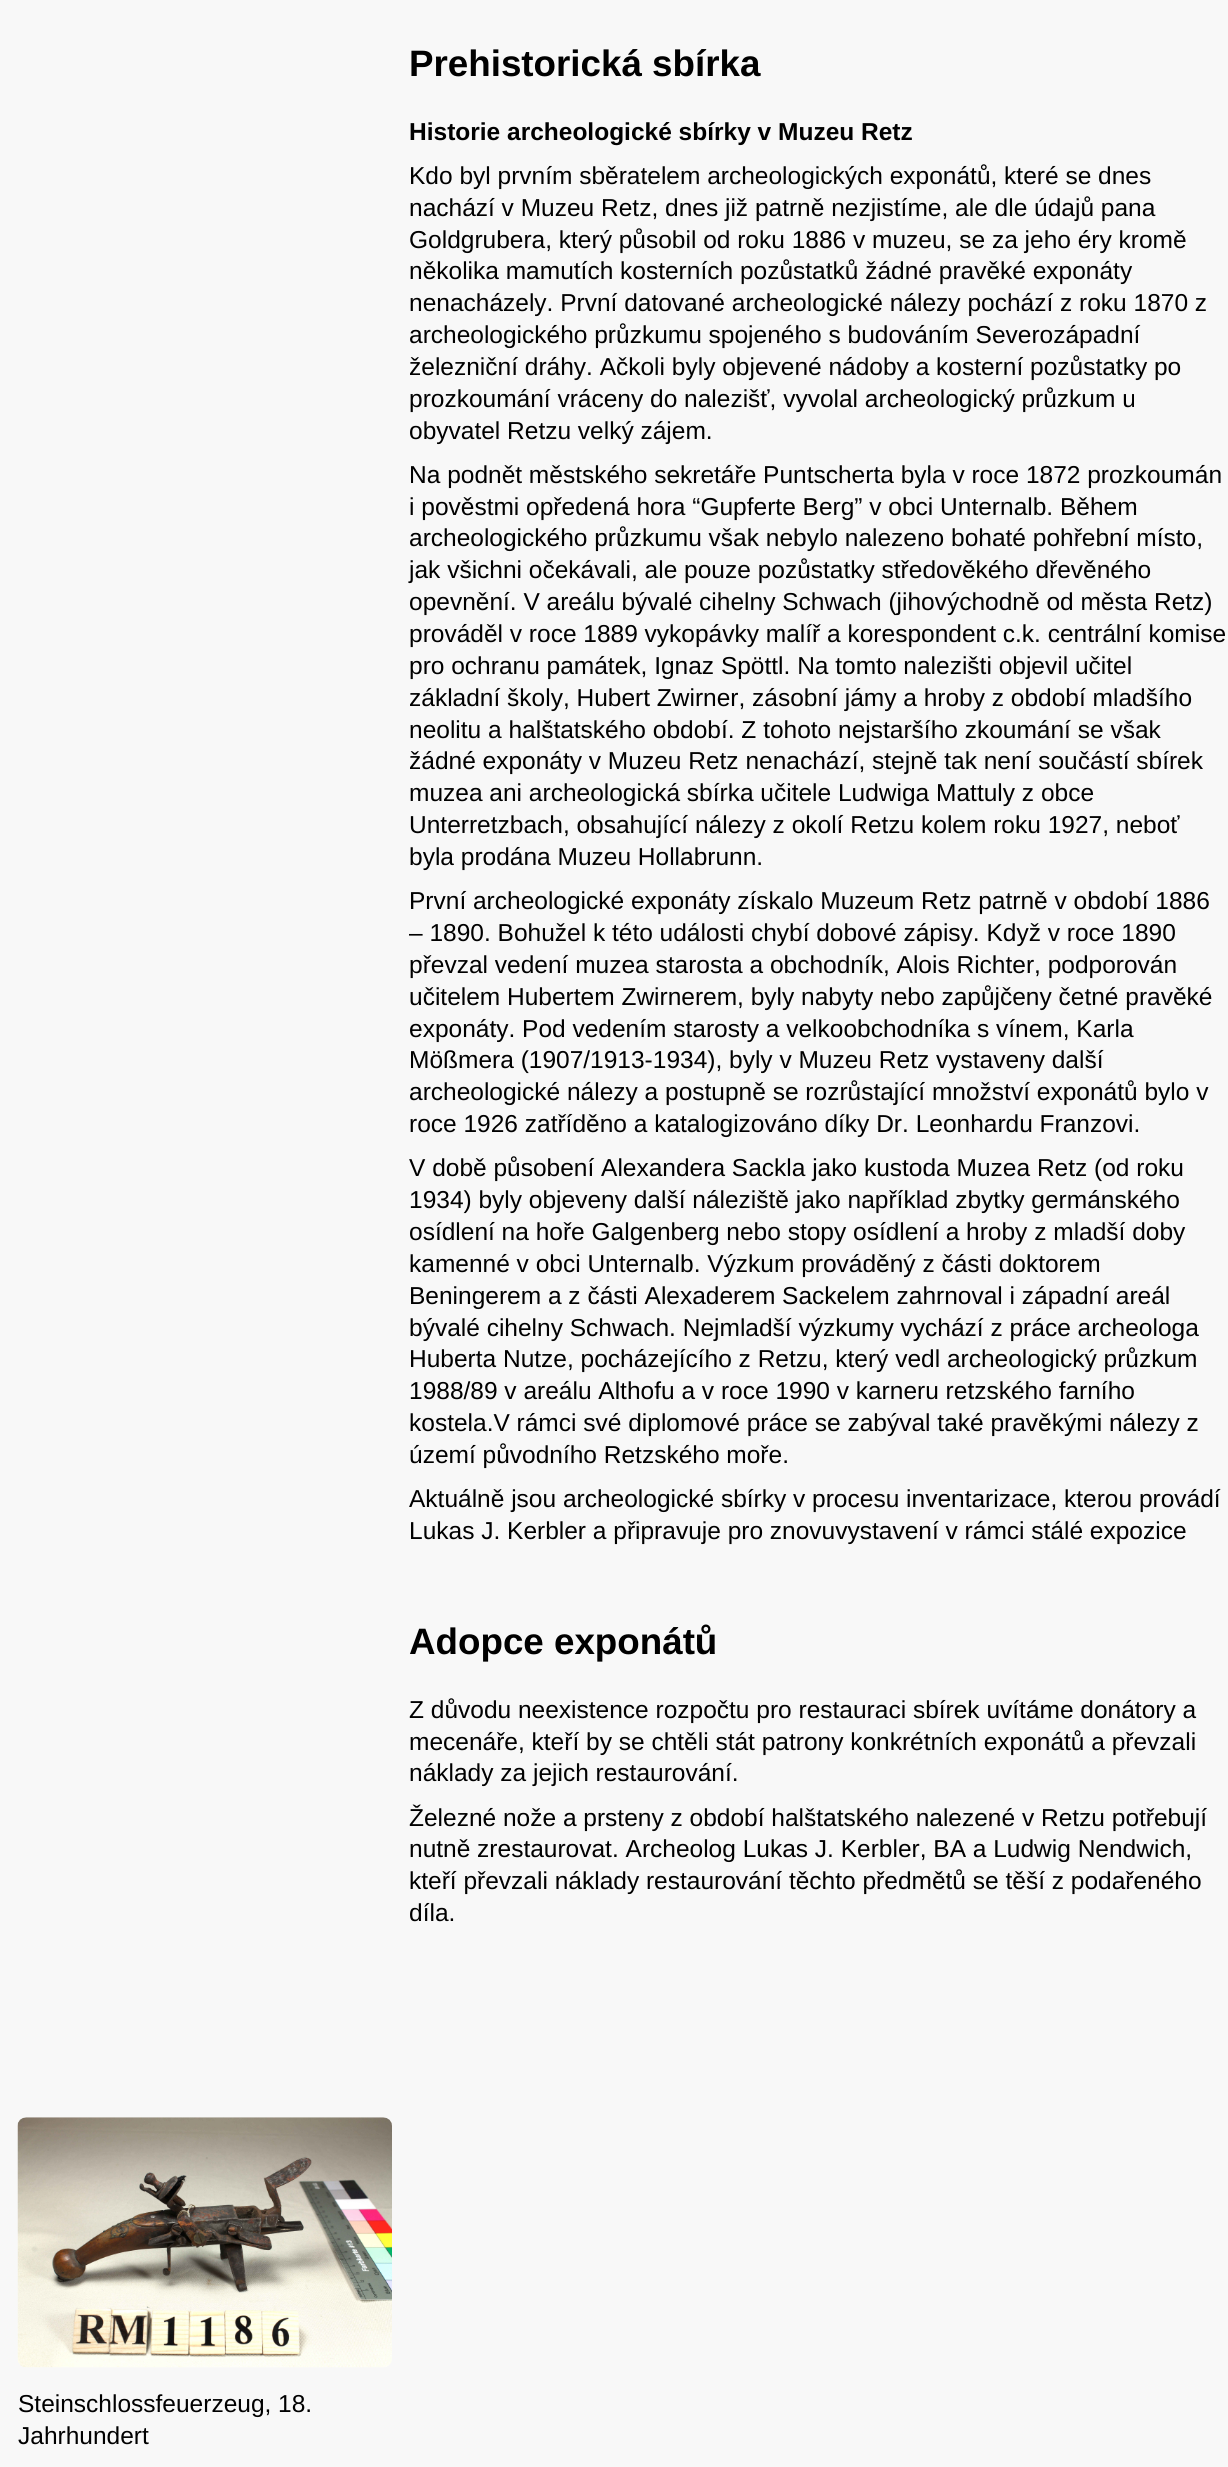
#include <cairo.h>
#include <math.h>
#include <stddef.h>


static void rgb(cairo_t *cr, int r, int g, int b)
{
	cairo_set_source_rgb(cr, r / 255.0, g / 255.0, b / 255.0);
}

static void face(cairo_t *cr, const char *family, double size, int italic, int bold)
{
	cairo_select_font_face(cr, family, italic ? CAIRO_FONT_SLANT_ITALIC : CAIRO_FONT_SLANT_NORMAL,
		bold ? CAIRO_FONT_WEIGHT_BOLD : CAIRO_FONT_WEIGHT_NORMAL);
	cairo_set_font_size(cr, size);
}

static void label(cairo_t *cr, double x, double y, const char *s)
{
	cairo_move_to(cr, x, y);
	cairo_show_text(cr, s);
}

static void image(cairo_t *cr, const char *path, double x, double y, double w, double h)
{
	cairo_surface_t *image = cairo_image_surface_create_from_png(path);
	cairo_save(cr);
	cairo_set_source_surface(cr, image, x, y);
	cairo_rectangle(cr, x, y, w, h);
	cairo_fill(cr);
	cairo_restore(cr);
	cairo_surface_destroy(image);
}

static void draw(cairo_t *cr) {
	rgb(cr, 248, 248, 248);
	cairo_paint(cr);
	face(cr, "Liberation Sans", 36.75, 0, 1);
	rgb(cr, 0, 0, 0);
	label(cr, 409, 76, "Prehistorická sbírka");
	face(cr, "Liberation Sans", 24.5, 0, 1);
	label(cr, 409, 140, "Historie archeologické sbírky v Muzeu Retz");
	face(cr, "Liberation Sans", 24.5, 0, 0);
	label(cr, 409, 184, "Kdo byl prvním sběratelem archeologických exponátů, které se dnes");
	label(cr, 409, 216, "nachází v Muzeu Retz, dnes již patrně nezjistíme, ale dle údajů pana");
	label(cr, 409, 248, "Goldgrubera, který působil od roku 1886 v muzeu, se za jeho éry kromě");
	label(cr, 409, 279, "několika mamutích kosterních pozůstatků žádné pravěké exponáty");
	label(cr, 409, 311, "nenacházely. První datované archeologické nálezy pochází z roku 1870 z");
	label(cr, 409, 343, "archeologického průzkumu spojeného s budováním Severozápadní");
	label(cr, 409, 375, "železniční dráhy. Ačkoli byly objevené nádoby a kosterní pozůstatky po");
	label(cr, 409, 407, "prozkoumání vráceny do nalezišť, vyvolal archeologický průzkum u");
	label(cr, 409, 439, "obyvatel Retzu velký zájem.");
	label(cr, 409, 483, "Na podnět městského sekretáře Puntscherta byla v roce 1872 prozkoumán");
	label(cr, 409, 515, "i pověstmi opředená hora “Gupferte Berg” v obci Unternalb. Během");
	label(cr, 409, 546, "archeologického průzkumu však nebylo nalezeno bohaté pohřební místo,");
	label(cr, 409, 578, "jak všichni očekávali, ale pouze pozůstatky středověkého dřevěného");
	label(cr, 409, 610, "opevnění. V areálu bývalé cihelny Schwach (jihovýchodně od města Retz)");
	label(cr, 409, 642, "prováděl v roce 1889 vykopávky malíř a korespondent c.k. centrální komise");
	label(cr, 409, 674, "pro ochranu památek, Ignaz Spöttl. Na tomto nalezišti objevil učitel");
	label(cr, 409, 706, "základní školy, Hubert Zwirner, zásobní jámy a hroby z období mladšího");
	label(cr, 409, 738, "neolitu a halštatského období. Z tohoto nejstaršího zkoumání se však");
	label(cr, 409, 769, "žádné exponáty v Muzeu Retz nenachází, stejně tak není součástí sbírek");
	label(cr, 409, 801, "muzea ani archeologická sbírka učitele Ludwiga Mattuly z obce");
	label(cr, 409, 833, "Unterretzbach, obsahující nálezy z okolí Retzu kolem roku 1927, neboť");
	label(cr, 409, 865, "byla prodána Muzeu Hollabrunn.");
	label(cr, 409, 909, "První archeologické exponáty získalo Muzeum Retz patrně v období 1886");
	label(cr, 409, 941, "– 1890. Bohužel k této události chybí dobové zápisy. Když v roce 1890");
	label(cr, 409, 973, "převzal vedení muzea starosta a obchodník, Alois Richter, podporován");
	label(cr, 409, 1005, "učitelem Hubertem Zwirnerem, byly nabyty nebo zapůjčeny četné pravěké");
	label(cr, 409, 1037, "exponáty. Pod vedením starosty a velkoobchodníka s vínem, Karla");
	label(cr, 409, 1068, "Mößmera (1907/1913-1934), byly v Muzeu Retz vystaveny další");
	label(cr, 409, 1100, "archeologické nálezy a postupně se rozrůstající množství exponátů bylo v");
	label(cr, 409, 1132, "roce 1926 zatříděno a katalogizováno díky Dr. Leonhardu Franzovi.");
	label(cr, 409, 1176, "V době působení Alexandera Sackla jako kustoda Muzea Retz (od roku");
	label(cr, 409, 1208, "1934) byly objeveny další náleziště jako například zbytky germánského");
	label(cr, 409, 1240, "osídlení na hoře Galgenberg nebo stopy osídlení a hroby z mladší doby");
	label(cr, 409, 1272, "kamenné v obci Unternalb. Výzkum prováděný z části doktorem");
	label(cr, 409, 1304, "Beningerem a z části Alexaderem Sackelem zahrnoval i západní areál");
	label(cr, 409, 1336, "bývalé cihelny Schwach. Nejmladší výzkumy vychází z práce archeologa");
	label(cr, 409, 1367, "Huberta Nutze, pocházejícího z Retzu, který vedl archeologický průzkum");
	label(cr, 409, 1399, "1988/89 v areálu Althofu a v roce 1990 v karneru retzského farního");
	label(cr, 409, 1431, "kostela.V rámci své diplomové práce se zabýval také pravěkými nálezy z");
	label(cr, 409, 1463, "území původního Retzského moře.");
	label(cr, 409, 1507, "Aktuálně jsou archeologické sbírky v procesu inventarizace, kterou provádí");
	label(cr, 409, 1539, "Lukas J. Kerbler a připravuje pro znovuvystavení v rámci stálé expozice");
	face(cr, "Liberation Sans", 36.75, 0, 1);
	label(cr, 409, 1654, "Adopce exponátů");
	face(cr, "Liberation Sans", 24.5, 0, 0);
	label(cr, 409, 1718, "Z důvodu neexistence rozpočtu pro restauraci sbírek uvítáme donátory a");
	label(cr, 409, 1750, "mecenáře, kteří by se chtěli stát patrony konkrétních exponátů a převzali");
	label(cr, 409, 1781, "náklady za jejich restaurování.");
	label(cr, 409, 1826, "Železné nože a prsteny z období halštatského nalezené v Retzu potřebují");
	label(cr, 409, 1857, "nutně zrestaurovat. Archeolog Lukas J. Kerbler, BA a Ludwig Nendwich,");
	label(cr, 409, 1889, "kteří převzali náklady restaurování těchto předmětů se těší z podařeného");
	label(cr, 409, 1921, "díla.");
	image(cr, "image0.png", 17, 2117, 375, 251);
	label(cr, 18, 2412, "Steinschlossfeuerzeug, 18.");
	label(cr, 18, 2444, "Jahrhundert");
}

int main(void) {
	cairo_surface_t *surface = cairo_image_surface_create(CAIRO_FORMAT_RGB24, 1228, 2467);
	cairo_t *cr = cairo_create(surface);
	cairo_font_options_t *options = cairo_font_options_create();
	cairo_font_options_set_hint_metrics(options, CAIRO_HINT_METRICS_OFF);
	cairo_font_options_set_hint_style(options, CAIRO_HINT_STYLE_NONE);
	cairo_set_font_options(cr, options);
	cairo_set_miter_limit(cr, 4);
	draw(cr);
	cairo_surface_write_to_png(surface, "render.png");
	cairo_font_options_destroy(options);
	cairo_destroy(cr);
	cairo_surface_destroy(surface);
	return 0;
}
